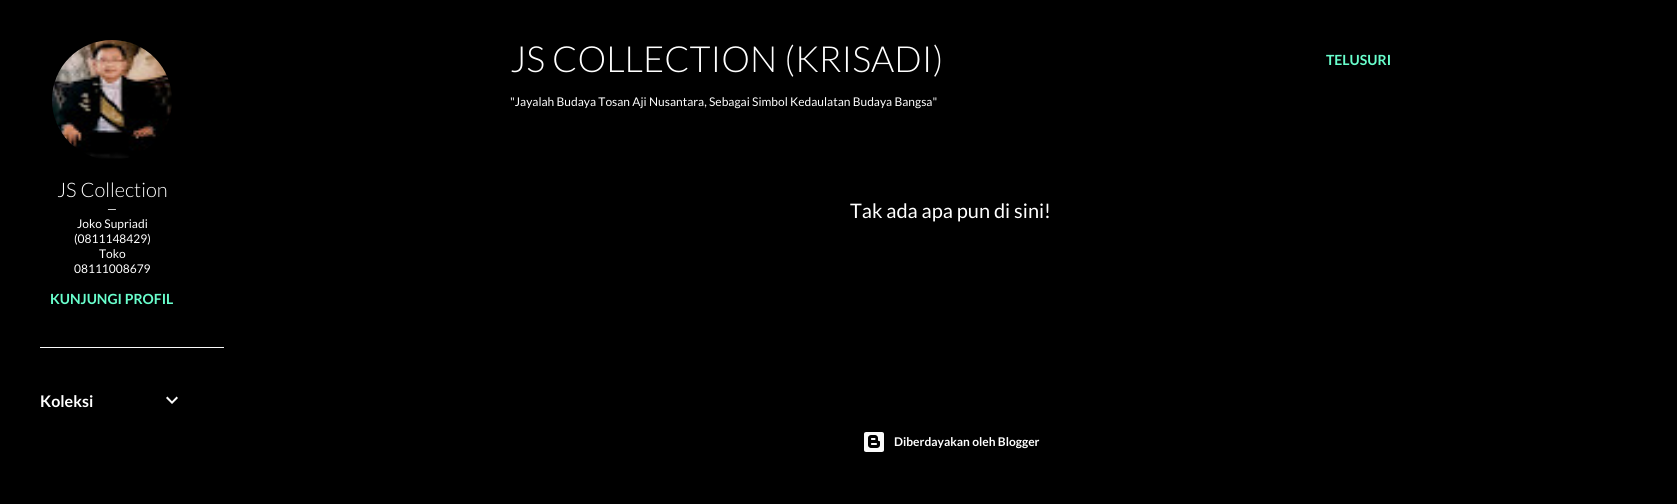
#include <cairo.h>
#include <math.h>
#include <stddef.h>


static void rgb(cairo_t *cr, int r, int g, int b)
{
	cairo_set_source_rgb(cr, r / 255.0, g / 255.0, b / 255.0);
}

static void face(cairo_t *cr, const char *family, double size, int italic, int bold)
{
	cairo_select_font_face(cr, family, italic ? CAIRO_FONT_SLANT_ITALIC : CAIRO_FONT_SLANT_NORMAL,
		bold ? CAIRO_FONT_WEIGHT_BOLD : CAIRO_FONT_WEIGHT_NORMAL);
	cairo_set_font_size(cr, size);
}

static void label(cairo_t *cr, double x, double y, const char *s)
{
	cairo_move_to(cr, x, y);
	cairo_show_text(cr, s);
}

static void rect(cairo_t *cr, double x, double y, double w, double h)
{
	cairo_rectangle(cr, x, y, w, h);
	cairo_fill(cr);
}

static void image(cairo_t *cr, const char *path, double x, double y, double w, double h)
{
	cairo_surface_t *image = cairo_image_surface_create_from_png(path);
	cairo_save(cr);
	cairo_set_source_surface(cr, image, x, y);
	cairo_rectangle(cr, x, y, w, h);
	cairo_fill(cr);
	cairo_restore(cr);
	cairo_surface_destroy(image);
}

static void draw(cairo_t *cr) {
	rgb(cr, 0, 0, 0);
	cairo_paint(cr);
	image(cr, "image0.png", 52, 40, 120, 119);
	face(cr, "Lato Light", 20, 0, 0);
	rgb(cr, 255, 255, 255);
	label(cr, 57, 197, "JS Collection");
	face(cr, "Lato", 12, 0, 0);
	label(cr, 107, 213, "—");
	label(cr, 77, 228, "Joko Supriadi");
	label(cr, 74, 243, "(0811148429)");
	label(cr, 99, 258, "Toko");
	label(cr, 74, 273, "08111008679");
	face(cr, "Lato", 14, 0, 1);
	rgb(cr, 105, 255, 205);
	label(cr, 50, 304, "KUNJUNGI PROFIL");
	rgb(cr, 251, 251, 251);
	rect(cr, 40, 347, 184, 1);
	face(cr, "Lato", 16, 0, 1);
	rgb(cr, 255, 255, 255);
	label(cr, 40, 407, "Koleksi");
	image(cr, "image1.png", 166, 396, 12, 8);
	face(cr, "Lato Light", 36, 0, 0);
	label(cr, 510, 72, "JS COLLECTION (KRISADI)");
	face(cr, "Lato", 12, 0, 0);
	label(cr, 510, 106, "\"Jayalah Budaya Tosan Aji Nusantara, Sebagai Simbol Kedaulatan Budaya Bangsa\"");
	face(cr, "Lato", 14, 0, 1);
	rgb(cr, 105, 255, 205);
	label(cr, 1326, 65, "TELUSURI");
	face(cr, "Lato", 20, 0, 0);
	rgb(cr, 255, 255, 255);
	label(cr, 850, 218, "Tak ada apa pun di sini!");
	image(cr, "image2.png", 864, 432, 20, 20);
	face(cr, "Lato", 12, 0, 1);
	label(cr, 894, 446, "Diberdayakan oleh Blogger");
}

int main(void) {
	cairo_surface_t *surface = cairo_image_surface_create(CAIRO_FORMAT_RGB24, 1677, 504);
	cairo_t *cr = cairo_create(surface);
	cairo_font_options_t *options = cairo_font_options_create();
	cairo_font_options_set_hint_metrics(options, CAIRO_HINT_METRICS_OFF);
	cairo_font_options_set_hint_style(options, CAIRO_HINT_STYLE_NONE);
	cairo_set_font_options(cr, options);
	cairo_set_miter_limit(cr, 4);
	draw(cr);
	cairo_surface_write_to_png(surface, "render.png");
	cairo_font_options_destroy(options);
	cairo_destroy(cr);
	cairo_surface_destroy(surface);
	return 0;
}
